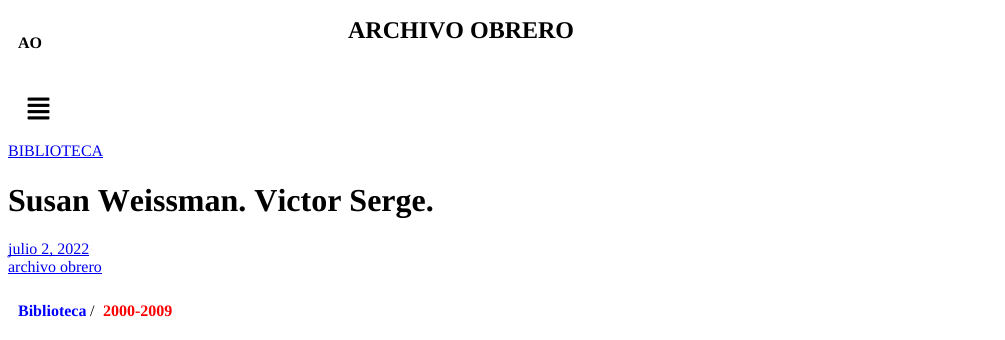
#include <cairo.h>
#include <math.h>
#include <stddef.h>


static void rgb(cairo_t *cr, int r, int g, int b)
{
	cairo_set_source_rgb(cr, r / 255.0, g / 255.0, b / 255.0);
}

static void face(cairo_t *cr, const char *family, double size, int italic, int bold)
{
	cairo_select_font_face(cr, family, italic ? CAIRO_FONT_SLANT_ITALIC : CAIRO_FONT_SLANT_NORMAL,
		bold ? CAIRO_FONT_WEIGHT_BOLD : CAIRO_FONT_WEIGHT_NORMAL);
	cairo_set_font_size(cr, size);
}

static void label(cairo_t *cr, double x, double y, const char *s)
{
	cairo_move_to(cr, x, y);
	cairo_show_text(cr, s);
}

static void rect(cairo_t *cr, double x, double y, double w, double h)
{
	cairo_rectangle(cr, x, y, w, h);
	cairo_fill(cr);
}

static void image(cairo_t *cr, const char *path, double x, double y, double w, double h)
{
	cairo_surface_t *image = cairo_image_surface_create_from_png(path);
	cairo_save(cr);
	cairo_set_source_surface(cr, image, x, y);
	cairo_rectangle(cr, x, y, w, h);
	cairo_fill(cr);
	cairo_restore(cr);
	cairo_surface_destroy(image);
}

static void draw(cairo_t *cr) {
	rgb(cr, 255, 255, 255);
	cairo_paint(cr);
	face(cr, "Liberation Serif", 24, 0, 1);
	rgb(cr, 0, 0, 0);
	label(cr, 348, 38, "ARCHIVO OBRERO");
	face(cr, "Liberation Serif", 16, 0, 1);
	label(cr, 18, 48, "AO");
	image(cr, "image0.png", 27, 97, 23, 23);
	face(cr, "Liberation Serif", 16, 0, 0);
	rgb(cr, 0, 0, 238);
	label(cr, 8, 156, "BIBLIOTECA");
	rect(cr, 8, 157, 95, 1);
	face(cr, "Liberation Serif", 32, 0, 1);
	rgb(cr, 0, 0, 0);
	label(cr, 8, 211, "Susan Weissman. Victor Serge.");
	rgb(cr, 0, 0, 238);
	rect(cr, 8, 255, 81, 1);
	face(cr, "Liberation Serif", 16, 0, 0);
	label(cr, 8, 254, "julio 2, 2022");
	label(cr, 8, 272, "archivo obrero");
	rect(cr, 8, 273, 94, 1);
	face(cr, "Liberation Serif", 16, 0, 1);
	rgb(cr, 0, 0, 255);
	label(cr, 18, 316, "Biblioteca");
	face(cr, "Liberation Serif", 16, 0, 0);
	rgb(cr, 0, 0, 0);
	label(cr, 90, 316, "/");
	face(cr, "Liberation Serif", 16, 0, 1);
	rgb(cr, 255, 0, 0);
	label(cr, 103, 316, "2000-2009");
}

int main(void) {
	cairo_surface_t *surface = cairo_image_surface_create(CAIRO_FORMAT_RGB24, 1005, 340);
	cairo_t *cr = cairo_create(surface);
	cairo_font_options_t *options = cairo_font_options_create();
	cairo_font_options_set_hint_metrics(options, CAIRO_HINT_METRICS_OFF);
	cairo_font_options_set_hint_style(options, CAIRO_HINT_STYLE_NONE);
	cairo_set_font_options(cr, options);
	cairo_set_miter_limit(cr, 4);
	draw(cr);
	cairo_surface_write_to_png(surface, "render.png");
	cairo_font_options_destroy(options);
	cairo_destroy(cr);
	cairo_surface_destroy(surface);
	return 0;
}
